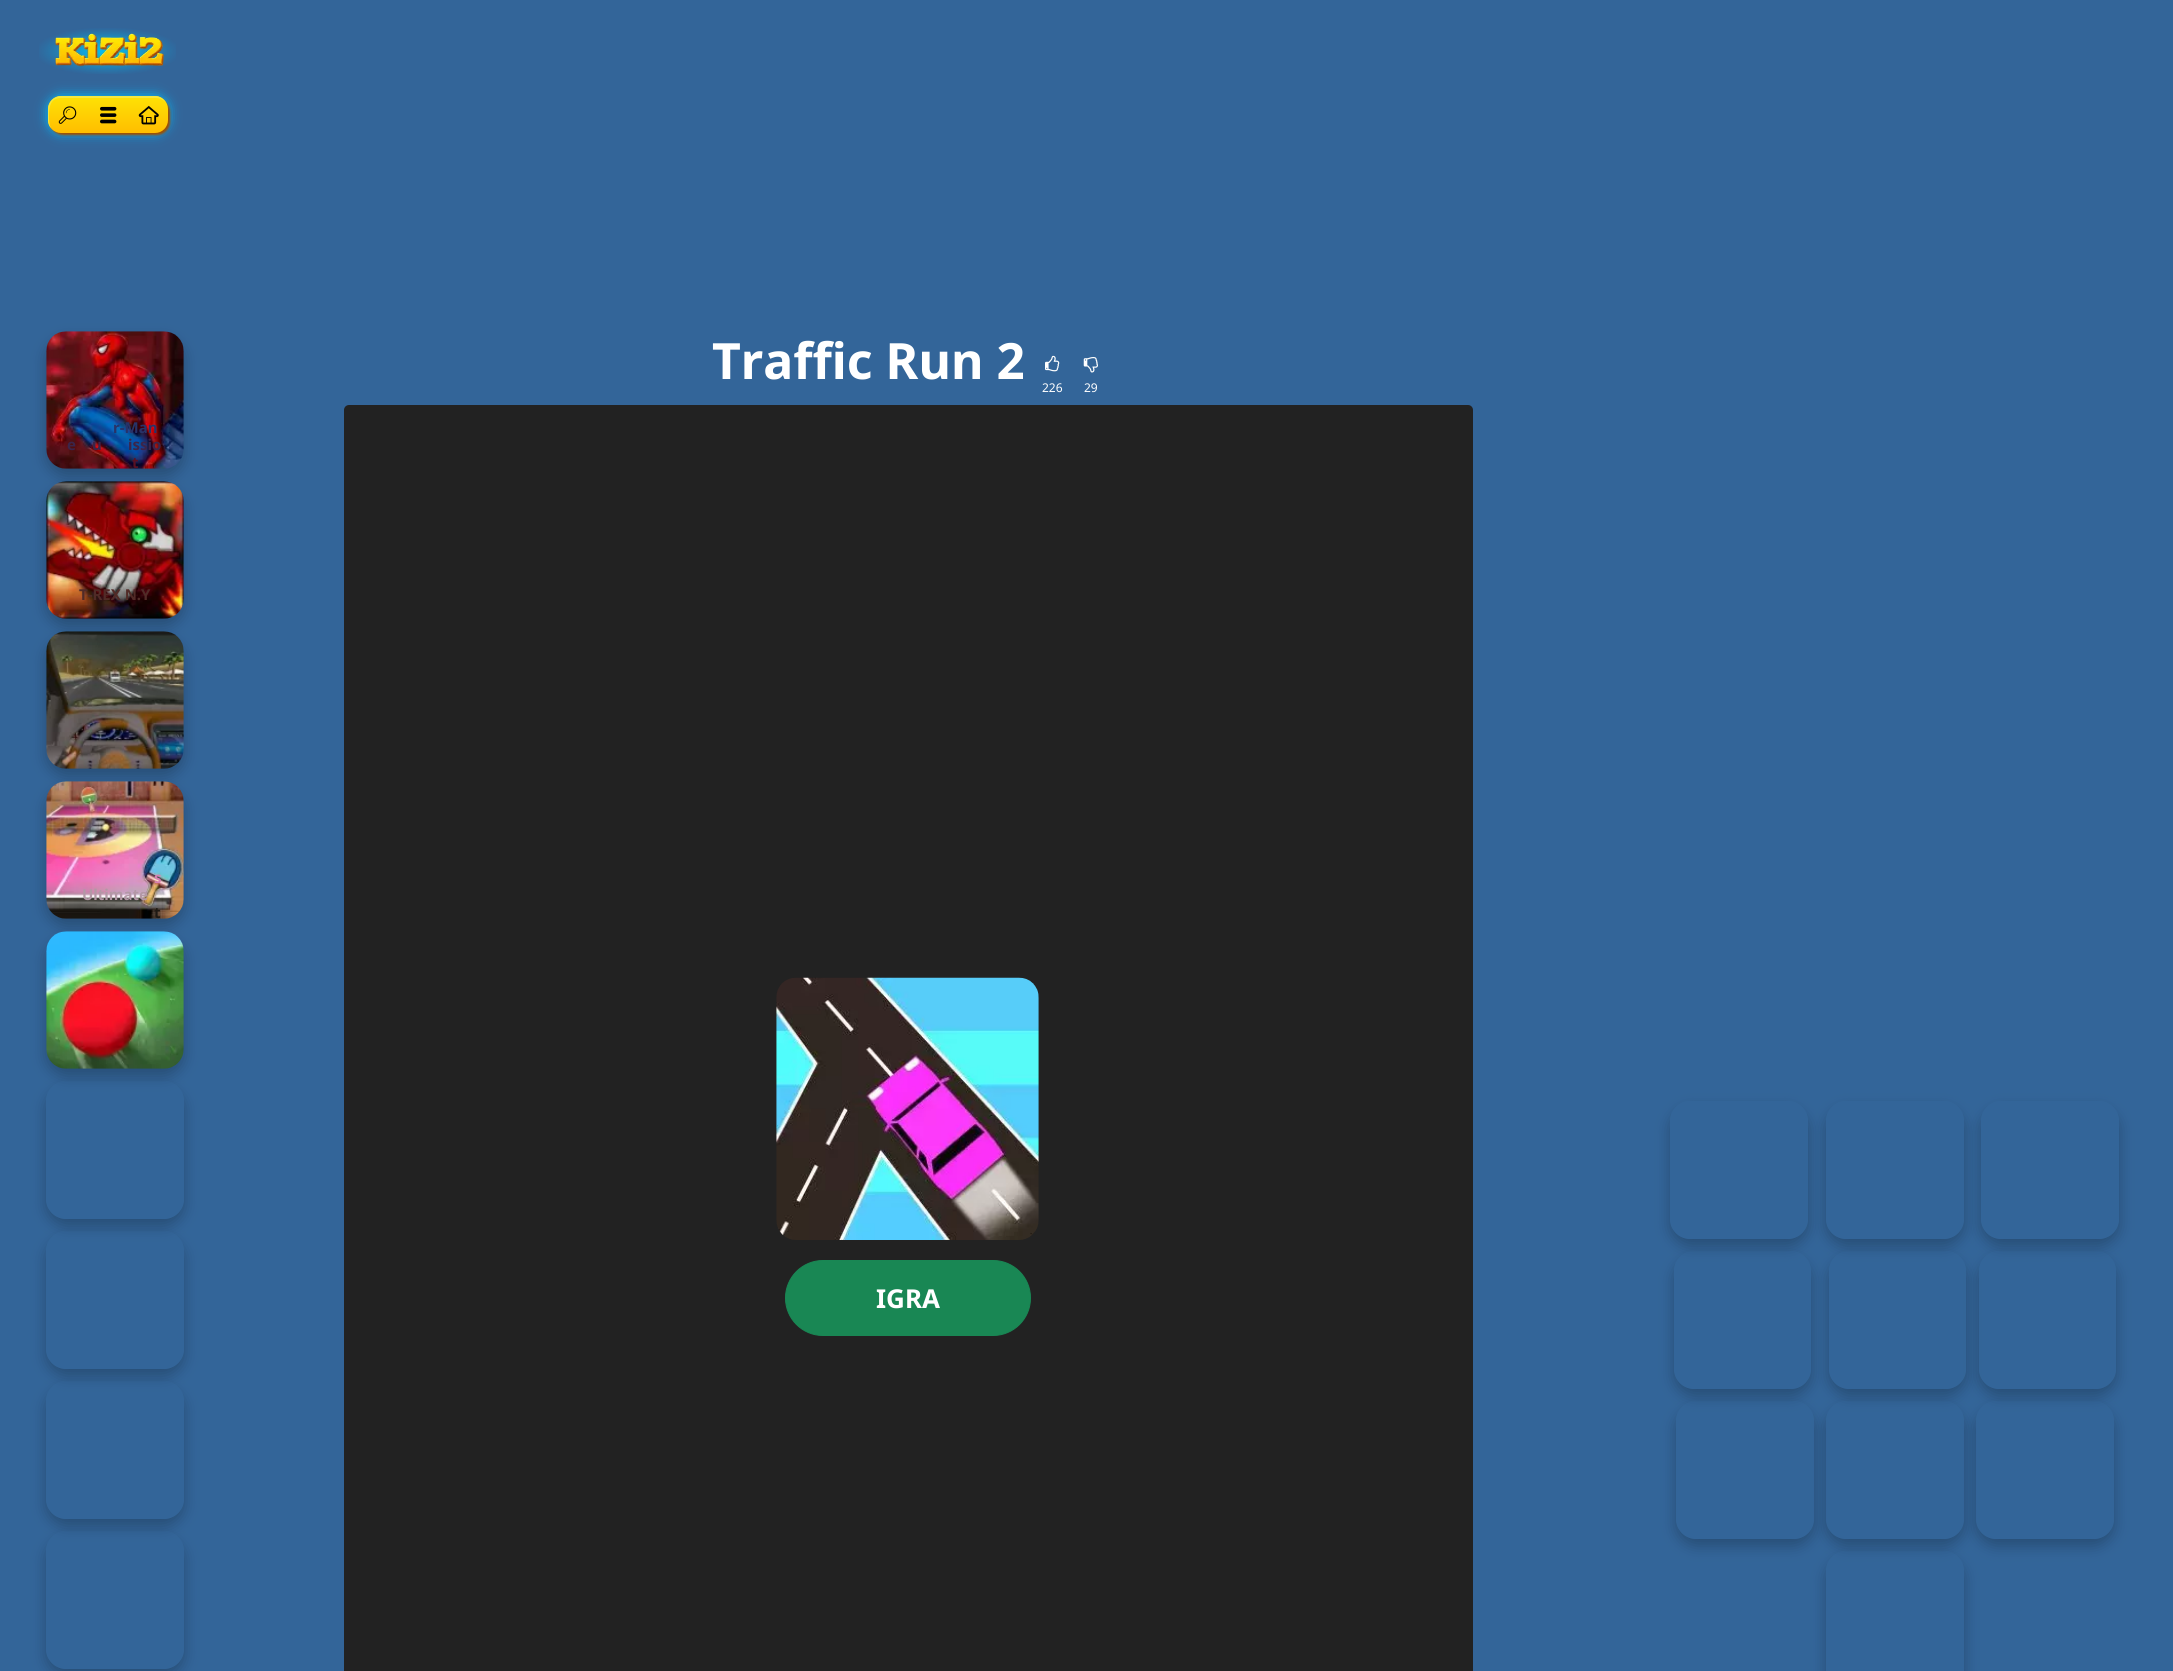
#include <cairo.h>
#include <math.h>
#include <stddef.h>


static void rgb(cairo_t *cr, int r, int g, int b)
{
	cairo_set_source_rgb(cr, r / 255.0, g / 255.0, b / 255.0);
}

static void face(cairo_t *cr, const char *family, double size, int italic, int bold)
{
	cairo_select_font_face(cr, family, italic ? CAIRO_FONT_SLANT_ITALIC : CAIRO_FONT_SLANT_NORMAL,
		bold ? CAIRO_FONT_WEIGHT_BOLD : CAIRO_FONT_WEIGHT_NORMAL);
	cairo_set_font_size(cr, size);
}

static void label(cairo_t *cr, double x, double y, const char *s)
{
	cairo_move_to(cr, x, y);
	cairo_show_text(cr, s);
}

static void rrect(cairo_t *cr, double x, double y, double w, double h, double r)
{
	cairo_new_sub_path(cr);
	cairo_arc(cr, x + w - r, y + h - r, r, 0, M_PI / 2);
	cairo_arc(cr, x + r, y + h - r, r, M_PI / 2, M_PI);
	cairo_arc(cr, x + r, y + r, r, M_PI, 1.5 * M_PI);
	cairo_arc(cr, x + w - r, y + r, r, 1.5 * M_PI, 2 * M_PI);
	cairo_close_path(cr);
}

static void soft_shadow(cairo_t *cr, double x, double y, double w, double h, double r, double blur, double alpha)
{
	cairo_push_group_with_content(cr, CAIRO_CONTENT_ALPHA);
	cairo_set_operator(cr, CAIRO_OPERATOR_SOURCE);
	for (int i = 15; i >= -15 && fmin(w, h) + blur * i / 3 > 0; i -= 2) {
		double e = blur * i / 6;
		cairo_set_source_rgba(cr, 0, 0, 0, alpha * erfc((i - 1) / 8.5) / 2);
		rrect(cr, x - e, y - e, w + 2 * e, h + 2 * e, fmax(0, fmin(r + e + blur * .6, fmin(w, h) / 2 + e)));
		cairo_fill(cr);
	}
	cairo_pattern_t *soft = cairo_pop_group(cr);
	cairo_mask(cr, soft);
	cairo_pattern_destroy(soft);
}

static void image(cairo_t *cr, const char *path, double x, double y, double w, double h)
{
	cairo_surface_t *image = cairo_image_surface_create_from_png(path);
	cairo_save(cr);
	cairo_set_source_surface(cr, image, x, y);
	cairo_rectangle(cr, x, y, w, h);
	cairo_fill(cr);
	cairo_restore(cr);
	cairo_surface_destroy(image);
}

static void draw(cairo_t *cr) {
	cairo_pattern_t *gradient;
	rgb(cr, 51, 101, 153);
	cairo_paint(cr);
	image(cr, "image0.png", 39, 28, 137, 46);
	rgb(cr, 0, 193, 255);
	soft_shadow(cr, 48, 96, 120, 37, 13, 6, 1);
	rgb(cr, 159, 78, 0);
	soft_shadow(cr, 50, 99, 120, 36, 13, 1, 1);
	gradient = cairo_pattern_create_linear(108, 96, 108, 133);
	cairo_pattern_add_color_stop_rgba(gradient, 0, 0.996, 0.89, 0.02, 1);
	cairo_pattern_add_color_stop_rgba(gradient, 1, 1, 0.745, 0, 1);
	cairo_set_source(cr, gradient);
	cairo_pattern_destroy(gradient);
	rrect(cr, 48, 96, 120, 37, 13);
	cairo_fill(cr);
	rgb(cr, 245, 232, 64);
	cairo_new_path(cr);
	cairo_move_to(cr, 61, 98);
	cairo_line_to(cr, 156, 98);
	cairo_curve_to(cr, 160, 98, 164, 100, 166, 103);
	cairo_curve_to(cr, 164, 99, 160, 96, 155, 96);
	cairo_line_to(cr, 61, 96);
	cairo_curve_to(cr, 54, 96, 48, 102, 48, 109);
	cairo_line_to(cr, 48, 120);
	cairo_curve_to(cr, 48, 123, 49, 126, 51, 128);
	cairo_curve_to(cr, 49, 124, 49, 120, 49, 116);
	cairo_curve_to(cr, 49, 107, 50, 98, 61, 98);
	cairo_close_path(cr);
	cairo_fill(cr);
	image(cr, "image1.png", 58, 106, 19, 18);
	image(cr, "image2.png", 100, 106, 17, 18);
	image(cr, "image3.png", 138, 105, 21, 20);
	rgb(cr, 0, 0, 0);
	soft_shadow(cr, 46, 339, 138, 137, 20, 7.5, 0.24);
	image(cr, "image4.png", 46, 331, 138, 138);
	face(cr, "Noto Sans", 15, 0, 1);
	rgb(cr, 40, 51, 104);
	label(cr, 113, 433, "r-Man");
	rgb(cr, 59, 37, 74);
	label(cr, 67, 450, "e");
	label(cr, 92, 450, "u");
	label(cr, 128, 450, "issio");
	rgb(cr, 0, 0, 0);
	soft_shadow(cr, 46, 489, 138, 137, 20, 7.5, 0.24);
	rgb(cr, 89, 17, 34);
	label(cr, 132, 468, "t");
	image(cr, "image5.png", 46, 481, 138, 138);
	rgb(cr, 81, 43, 39);
	label(cr, 79, 600, "T-REX N.Y");
	rgb(cr, 0, 0, 0);
	soft_shadow(cr, 46, 639, 138, 137, 20, 7.5, 0.24);
	image(cr, "image6.png", 46, 631, 138, 138);
	soft_shadow(cr, 46, 789, 138, 137, 20, 7.5, 0.24);
	image(cr, "image7.png", 46, 781, 138, 138);
	rgb(cr, 215, 129, 179);
	label(cr, 154, 883, "s");
	rgb(cr, 179, 152, 166);
	label(cr, 82, 900, "Ultimate");
	rgb(cr, 0, 0, 0);
	soft_shadow(cr, 46, 939, 138, 137, 20, 7.5, 0.24);
	rgb(cr, 31, 26, 20);
	label(cr, 154, 918, "t");
	image(cr, "image8.png", 46, 931, 138, 138);
	cairo_save(cr);
	cairo_set_fill_rule(cr, CAIRO_FILL_RULE_EVEN_ODD);
	cairo_new_path(cr);
	cairo_move_to(cr, 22, 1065);
	cairo_line_to(cr, 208, 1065);
	cairo_line_to(cr, 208, 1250);
	cairo_line_to(cr, 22, 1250);
	cairo_close_path(cr);
	cairo_move_to(cr, 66, 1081);
	cairo_line_to(cr, 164, 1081);
	cairo_curve_to(cr, 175, 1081, 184, 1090, 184, 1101);
	cairo_line_to(cr, 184, 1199);
	cairo_curve_to(cr, 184, 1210, 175, 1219, 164, 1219);
	cairo_line_to(cr, 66, 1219);
	cairo_curve_to(cr, 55, 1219, 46, 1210, 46, 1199);
	cairo_line_to(cr, 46, 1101);
	cairo_curve_to(cr, 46, 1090, 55, 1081, 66, 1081);
	cairo_close_path(cr);
	cairo_clip(cr);
	rgb(cr, 0, 0, 0);
	soft_shadow(cr, 46, 1089, 138, 137, 20, 7.5, 0.24);
	cairo_restore(cr);
	cairo_save(cr);
	cairo_set_fill_rule(cr, CAIRO_FILL_RULE_EVEN_ODD);
	cairo_new_path(cr);
	cairo_move_to(cr, 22, 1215);
	cairo_line_to(cr, 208, 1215);
	cairo_line_to(cr, 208, 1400);
	cairo_line_to(cr, 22, 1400);
	cairo_close_path(cr);
	cairo_move_to(cr, 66, 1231);
	cairo_line_to(cr, 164, 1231);
	cairo_curve_to(cr, 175, 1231, 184, 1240, 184, 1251);
	cairo_line_to(cr, 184, 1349);
	cairo_curve_to(cr, 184, 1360, 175, 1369, 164, 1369);
	cairo_line_to(cr, 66, 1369);
	cairo_curve_to(cr, 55, 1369, 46, 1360, 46, 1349);
	cairo_line_to(cr, 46, 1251);
	cairo_curve_to(cr, 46, 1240, 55, 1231, 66, 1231);
	cairo_close_path(cr);
	cairo_clip(cr);
	rgb(cr, 0, 0, 0);
	soft_shadow(cr, 46, 1239, 138, 137, 20, 7.5, 0.24);
	cairo_restore(cr);
	cairo_save(cr);
	cairo_set_fill_rule(cr, CAIRO_FILL_RULE_EVEN_ODD);
	cairo_new_path(cr);
	cairo_move_to(cr, 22, 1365);
	cairo_line_to(cr, 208, 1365);
	cairo_line_to(cr, 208, 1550);
	cairo_line_to(cr, 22, 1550);
	cairo_close_path(cr);
	cairo_move_to(cr, 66, 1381);
	cairo_line_to(cr, 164, 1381);
	cairo_curve_to(cr, 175, 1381, 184, 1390, 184, 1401);
	cairo_line_to(cr, 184, 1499);
	cairo_curve_to(cr, 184, 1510, 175, 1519, 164, 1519);
	cairo_line_to(cr, 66, 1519);
	cairo_curve_to(cr, 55, 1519, 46, 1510, 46, 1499);
	cairo_line_to(cr, 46, 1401);
	cairo_curve_to(cr, 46, 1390, 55, 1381, 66, 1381);
	cairo_close_path(cr);
	cairo_clip(cr);
	rgb(cr, 0, 0, 0);
	soft_shadow(cr, 46, 1389, 138, 137, 20, 7.5, 0.24);
	cairo_restore(cr);
	cairo_save(cr);
	cairo_set_fill_rule(cr, CAIRO_FILL_RULE_EVEN_ODD);
	cairo_new_path(cr);
	cairo_move_to(cr, 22, 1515);
	cairo_line_to(cr, 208, 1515);
	cairo_line_to(cr, 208, 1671);
	cairo_line_to(cr, 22, 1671);
	cairo_close_path(cr);
	cairo_move_to(cr, 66, 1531);
	cairo_line_to(cr, 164, 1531);
	cairo_curve_to(cr, 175, 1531, 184, 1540, 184, 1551);
	cairo_line_to(cr, 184, 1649);
	cairo_curve_to(cr, 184, 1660, 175, 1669, 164, 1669);
	cairo_line_to(cr, 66, 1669);
	cairo_curve_to(cr, 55, 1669, 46, 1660, 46, 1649);
	cairo_line_to(cr, 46, 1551);
	cairo_curve_to(cr, 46, 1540, 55, 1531, 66, 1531);
	cairo_close_path(cr);
	cairo_clip(cr);
	rgb(cr, 0, 0, 0);
	soft_shadow(cr, 46, 1539, 138, 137, 20, 7.5, 0.24);
	cairo_restore(cr);
	face(cr, "Noto Sans", 50, 0, 1);
	rgb(cr, 255, 255, 255);
	label(cr, 712, 379, "Traffic Run 2");
	image(cr, "image9.png", 1045, 355, 15, 17);
	face(cr, "Noto Sans", 12, 0, 0);
	label(cr, 1042, 392, "226");
	image(cr, "image10.png", 1083, 357, 15, 16);
	label(cr, 1084, 392, "29");
	rgb(cr, 34, 34, 34);
	rrect(cr, 344, 405, 1129, 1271, 5);
	cairo_fill(cr);
	image(cr, "image11.png", 776, 977, 263, 263);
	rgb(cr, 25, 135, 84);
	rrect(cr, 785.5, 1260.5, 245, 75, 37.5);
	cairo_fill_preserve(cr);
	cairo_set_line_width(cr, 1);
	cairo_stroke(cr);
	face(cr, "Noto Sans", 26, 0, 1);
	rgb(cr, 255, 255, 255);
	label(cr, 876, 1308, "IGRA");
	cairo_save(cr);
	cairo_set_fill_rule(cr, CAIRO_FILL_RULE_EVEN_ODD);
	cairo_new_path(cr);
	cairo_move_to(cr, 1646, 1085);
	cairo_line_to(cr, 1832, 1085);
	cairo_line_to(cr, 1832, 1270);
	cairo_line_to(cr, 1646, 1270);
	cairo_close_path(cr);
	cairo_move_to(cr, 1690, 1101);
	cairo_line_to(cr, 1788, 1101);
	cairo_curve_to(cr, 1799, 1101, 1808, 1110, 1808, 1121);
	cairo_line_to(cr, 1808, 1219);
	cairo_curve_to(cr, 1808, 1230, 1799, 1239, 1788, 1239);
	cairo_line_to(cr, 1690, 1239);
	cairo_curve_to(cr, 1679, 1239, 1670, 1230, 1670, 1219);
	cairo_line_to(cr, 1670, 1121);
	cairo_curve_to(cr, 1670, 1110, 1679, 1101, 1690, 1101);
	cairo_close_path(cr);
	cairo_clip(cr);
	rgb(cr, 0, 0, 0);
	soft_shadow(cr, 1670, 1109, 138, 137, 20, 7.5, 0.24);
	cairo_restore(cr);
	cairo_save(cr);
	cairo_set_fill_rule(cr, CAIRO_FILL_RULE_EVEN_ODD);
	cairo_new_path(cr);
	cairo_move_to(cr, 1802, 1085);
	cairo_line_to(cr, 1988, 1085);
	cairo_line_to(cr, 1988, 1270);
	cairo_line_to(cr, 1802, 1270);
	cairo_close_path(cr);
	cairo_move_to(cr, 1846, 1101);
	cairo_line_to(cr, 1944, 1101);
	cairo_curve_to(cr, 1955, 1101, 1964, 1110, 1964, 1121);
	cairo_line_to(cr, 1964, 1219);
	cairo_curve_to(cr, 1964, 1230, 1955, 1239, 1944, 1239);
	cairo_line_to(cr, 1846, 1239);
	cairo_curve_to(cr, 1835, 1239, 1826, 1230, 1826, 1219);
	cairo_line_to(cr, 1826, 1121);
	cairo_curve_to(cr, 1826, 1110, 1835, 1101, 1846, 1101);
	cairo_close_path(cr);
	cairo_clip(cr);
	rgb(cr, 0, 0, 0);
	soft_shadow(cr, 1826, 1109, 138, 137, 20, 7.5, 0.24);
	cairo_restore(cr);
	cairo_save(cr);
	cairo_set_fill_rule(cr, CAIRO_FILL_RULE_EVEN_ODD);
	cairo_new_path(cr);
	cairo_move_to(cr, 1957, 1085);
	cairo_line_to(cr, 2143, 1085);
	cairo_line_to(cr, 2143, 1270);
	cairo_line_to(cr, 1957, 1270);
	cairo_close_path(cr);
	cairo_move_to(cr, 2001, 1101);
	cairo_line_to(cr, 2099, 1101);
	cairo_curve_to(cr, 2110, 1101, 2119, 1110, 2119, 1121);
	cairo_line_to(cr, 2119, 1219);
	cairo_curve_to(cr, 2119, 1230, 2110, 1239, 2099, 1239);
	cairo_line_to(cr, 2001, 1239);
	cairo_curve_to(cr, 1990, 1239, 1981, 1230, 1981, 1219);
	cairo_line_to(cr, 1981, 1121);
	cairo_curve_to(cr, 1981, 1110, 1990, 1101, 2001, 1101);
	cairo_close_path(cr);
	cairo_clip(cr);
	rgb(cr, 0, 0, 0);
	soft_shadow(cr, 1981, 1109, 138, 137, 20, 7.5, 0.24);
	cairo_restore(cr);
	cairo_save(cr);
	cairo_set_fill_rule(cr, CAIRO_FILL_RULE_EVEN_ODD);
	cairo_new_path(cr);
	cairo_move_to(cr, 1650, 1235);
	cairo_line_to(cr, 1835, 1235);
	cairo_line_to(cr, 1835, 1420);
	cairo_line_to(cr, 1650, 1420);
	cairo_close_path(cr);
	cairo_move_to(cr, 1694, 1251);
	cairo_line_to(cr, 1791, 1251);
	cairo_curve_to(cr, 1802, 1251, 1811, 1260, 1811, 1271);
	cairo_line_to(cr, 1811, 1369);
	cairo_curve_to(cr, 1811, 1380, 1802, 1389, 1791, 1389);
	cairo_line_to(cr, 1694, 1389);
	cairo_curve_to(cr, 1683, 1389, 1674, 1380, 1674, 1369);
	cairo_line_to(cr, 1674, 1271);
	cairo_curve_to(cr, 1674, 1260, 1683, 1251, 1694, 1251);
	cairo_close_path(cr);
	cairo_clip(cr);
	rgb(cr, 0, 0, 0);
	soft_shadow(cr, 1674, 1259, 137, 137, 20, 7.5, 0.24);
	cairo_restore(cr);
	cairo_save(cr);
	cairo_set_fill_rule(cr, CAIRO_FILL_RULE_EVEN_ODD);
	cairo_new_path(cr);
	cairo_move_to(cr, 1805, 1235);
	cairo_line_to(cr, 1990, 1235);
	cairo_line_to(cr, 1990, 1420);
	cairo_line_to(cr, 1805, 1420);
	cairo_close_path(cr);
	cairo_move_to(cr, 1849, 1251);
	cairo_line_to(cr, 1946, 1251);
	cairo_curve_to(cr, 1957, 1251, 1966, 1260, 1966, 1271);
	cairo_line_to(cr, 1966, 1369);
	cairo_curve_to(cr, 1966, 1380, 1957, 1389, 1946, 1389);
	cairo_line_to(cr, 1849, 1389);
	cairo_curve_to(cr, 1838, 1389, 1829, 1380, 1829, 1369);
	cairo_line_to(cr, 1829, 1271);
	cairo_curve_to(cr, 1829, 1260, 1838, 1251, 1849, 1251);
	cairo_close_path(cr);
	cairo_clip(cr);
	rgb(cr, 0, 0, 0);
	soft_shadow(cr, 1829, 1259, 137, 137, 20, 7.5, 0.24);
	cairo_restore(cr);
	cairo_save(cr);
	cairo_set_fill_rule(cr, CAIRO_FILL_RULE_EVEN_ODD);
	cairo_new_path(cr);
	cairo_move_to(cr, 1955, 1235);
	cairo_line_to(cr, 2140, 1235);
	cairo_line_to(cr, 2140, 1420);
	cairo_line_to(cr, 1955, 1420);
	cairo_close_path(cr);
	cairo_move_to(cr, 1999, 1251);
	cairo_line_to(cr, 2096, 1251);
	cairo_curve_to(cr, 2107, 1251, 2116, 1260, 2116, 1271);
	cairo_line_to(cr, 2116, 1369);
	cairo_curve_to(cr, 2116, 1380, 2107, 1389, 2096, 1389);
	cairo_line_to(cr, 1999, 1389);
	cairo_curve_to(cr, 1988, 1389, 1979, 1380, 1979, 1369);
	cairo_line_to(cr, 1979, 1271);
	cairo_curve_to(cr, 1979, 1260, 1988, 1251, 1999, 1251);
	cairo_close_path(cr);
	cairo_clip(cr);
	rgb(cr, 0, 0, 0);
	soft_shadow(cr, 1979, 1259, 137, 137, 20, 7.5, 0.24);
	cairo_restore(cr);
	cairo_save(cr);
	cairo_set_fill_rule(cr, CAIRO_FILL_RULE_EVEN_ODD);
	cairo_new_path(cr);
	cairo_move_to(cr, 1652, 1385);
	cairo_line_to(cr, 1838, 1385);
	cairo_line_to(cr, 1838, 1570);
	cairo_line_to(cr, 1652, 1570);
	cairo_close_path(cr);
	cairo_move_to(cr, 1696, 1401);
	cairo_line_to(cr, 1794, 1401);
	cairo_curve_to(cr, 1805, 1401, 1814, 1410, 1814, 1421);
	cairo_line_to(cr, 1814, 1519);
	cairo_curve_to(cr, 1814, 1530, 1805, 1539, 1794, 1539);
	cairo_line_to(cr, 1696, 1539);
	cairo_curve_to(cr, 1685, 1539, 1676, 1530, 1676, 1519);
	cairo_line_to(cr, 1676, 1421);
	cairo_curve_to(cr, 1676, 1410, 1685, 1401, 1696, 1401);
	cairo_close_path(cr);
	cairo_clip(cr);
	rgb(cr, 0, 0, 0);
	soft_shadow(cr, 1676, 1409, 138, 137, 20, 7.5, 0.24);
	cairo_restore(cr);
	cairo_save(cr);
	cairo_set_fill_rule(cr, CAIRO_FILL_RULE_EVEN_ODD);
	cairo_new_path(cr);
	cairo_move_to(cr, 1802, 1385);
	cairo_line_to(cr, 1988, 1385);
	cairo_line_to(cr, 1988, 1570);
	cairo_line_to(cr, 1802, 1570);
	cairo_close_path(cr);
	cairo_move_to(cr, 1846, 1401);
	cairo_line_to(cr, 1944, 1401);
	cairo_curve_to(cr, 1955, 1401, 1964, 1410, 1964, 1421);
	cairo_line_to(cr, 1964, 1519);
	cairo_curve_to(cr, 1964, 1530, 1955, 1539, 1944, 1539);
	cairo_line_to(cr, 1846, 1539);
	cairo_curve_to(cr, 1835, 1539, 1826, 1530, 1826, 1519);
	cairo_line_to(cr, 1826, 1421);
	cairo_curve_to(cr, 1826, 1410, 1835, 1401, 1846, 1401);
	cairo_close_path(cr);
	cairo_clip(cr);
	rgb(cr, 0, 0, 0);
	soft_shadow(cr, 1826, 1409, 138, 137, 20, 7.5, 0.24);
	cairo_restore(cr);
	cairo_save(cr);
	cairo_set_fill_rule(cr, CAIRO_FILL_RULE_EVEN_ODD);
	cairo_new_path(cr);
	cairo_move_to(cr, 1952, 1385);
	cairo_line_to(cr, 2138, 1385);
	cairo_line_to(cr, 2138, 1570);
	cairo_line_to(cr, 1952, 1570);
	cairo_close_path(cr);
	cairo_move_to(cr, 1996, 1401);
	cairo_line_to(cr, 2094, 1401);
	cairo_curve_to(cr, 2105, 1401, 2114, 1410, 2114, 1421);
	cairo_line_to(cr, 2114, 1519);
	cairo_curve_to(cr, 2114, 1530, 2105, 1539, 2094, 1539);
	cairo_line_to(cr, 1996, 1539);
	cairo_curve_to(cr, 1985, 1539, 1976, 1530, 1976, 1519);
	cairo_line_to(cr, 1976, 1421);
	cairo_curve_to(cr, 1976, 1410, 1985, 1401, 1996, 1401);
	cairo_close_path(cr);
	cairo_clip(cr);
	rgb(cr, 0, 0, 0);
	soft_shadow(cr, 1976, 1409, 138, 137, 20, 7.5, 0.24);
	cairo_restore(cr);
	cairo_save(cr);
	cairo_set_fill_rule(cr, CAIRO_FILL_RULE_EVEN_ODD);
	cairo_new_path(cr);
	cairo_move_to(cr, 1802, 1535);
	cairo_line_to(cr, 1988, 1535);
	cairo_line_to(cr, 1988, 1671);
	cairo_line_to(cr, 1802, 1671);
	cairo_close_path(cr);
	cairo_move_to(cr, 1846, 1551);
	cairo_line_to(cr, 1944, 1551);
	cairo_curve_to(cr, 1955, 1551, 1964, 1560, 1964, 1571);
	cairo_line_to(cr, 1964, 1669);
	cairo_curve_to(cr, 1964, 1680, 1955, 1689, 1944, 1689);
	cairo_line_to(cr, 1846, 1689);
	cairo_curve_to(cr, 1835, 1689, 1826, 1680, 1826, 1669);
	cairo_line_to(cr, 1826, 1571);
	cairo_curve_to(cr, 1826, 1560, 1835, 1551, 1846, 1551);
	cairo_close_path(cr);
	cairo_clip(cr);
	rgb(cr, 0, 0, 0);
	soft_shadow(cr, 1826, 1559, 138, 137, 20, 7.5, 0.24);
	cairo_restore(cr);
}

int main(void) {
	cairo_surface_t *surface = cairo_image_surface_create(CAIRO_FORMAT_RGB24, 2173, 1671);
	cairo_t *cr = cairo_create(surface);
	cairo_font_options_t *options = cairo_font_options_create();
	cairo_font_options_set_hint_metrics(options, CAIRO_HINT_METRICS_OFF);
	cairo_font_options_set_hint_style(options, CAIRO_HINT_STYLE_NONE);
	cairo_set_font_options(cr, options);
	cairo_set_miter_limit(cr, 4);
	draw(cr);
	cairo_surface_write_to_png(surface, "render.png");
	cairo_font_options_destroy(options);
	cairo_destroy(cr);
	cairo_surface_destroy(surface);
	return 0;
}
